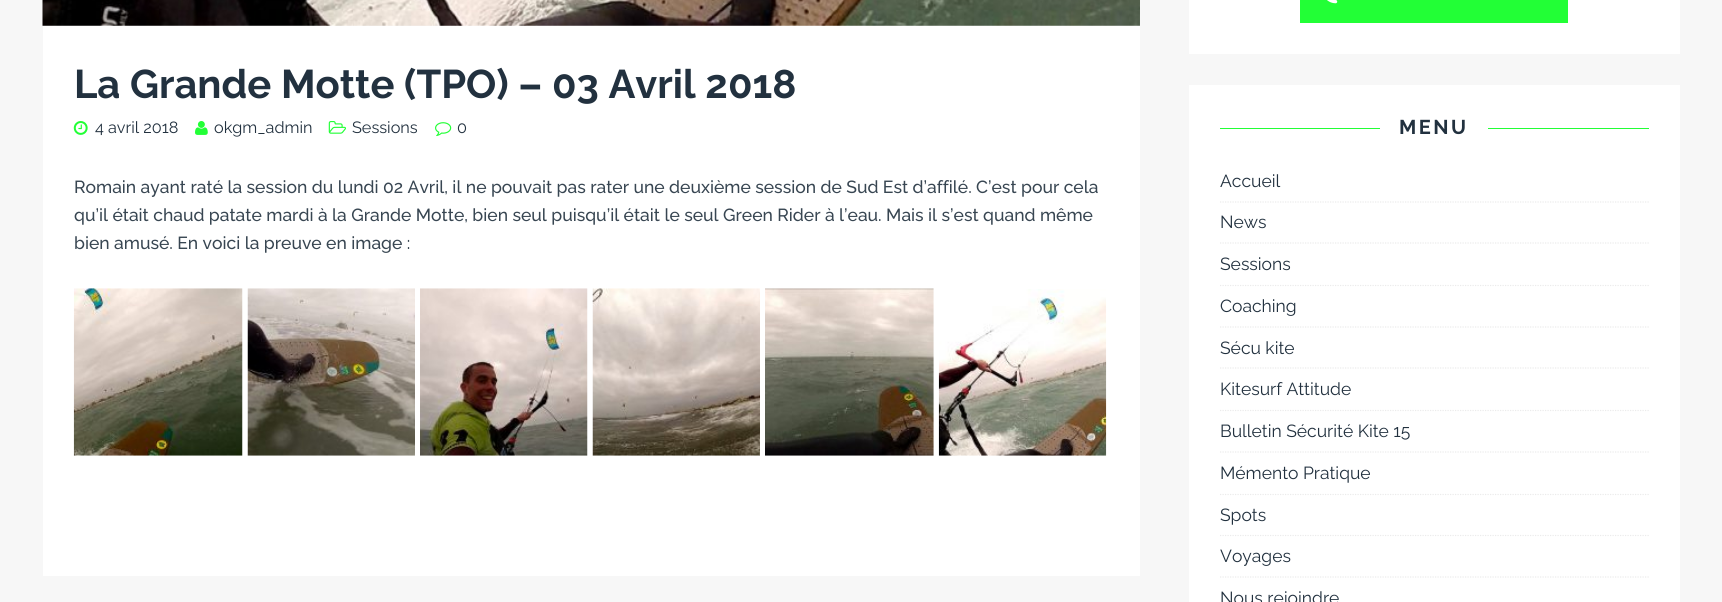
#include <cairo.h>
#include <math.h>
#include <stddef.h>


static void rgb(cairo_t *cr, int r, int g, int b)
{
	cairo_set_source_rgb(cr, r / 255.0, g / 255.0, b / 255.0);
}

static void face(cairo_t *cr, const char *family, double size, int italic, int bold)
{
	cairo_select_font_face(cr, family, italic ? CAIRO_FONT_SLANT_ITALIC : CAIRO_FONT_SLANT_NORMAL,
		bold ? CAIRO_FONT_WEIGHT_BOLD : CAIRO_FONT_WEIGHT_NORMAL);
	cairo_set_font_size(cr, size);
}

static void label(cairo_t *cr, double x, double y, const char *s)
{
	cairo_move_to(cr, x, y);
	cairo_show_text(cr, s);
}

static void tracked(cairo_t *cr, double x, double y, const char *s, double letter, double word)
{
	cairo_move_to(cr, x, y);
	while (*s) {
		char ch[5] = {0};
		int n = 0;
		do ch[n++] = *s++; while ((*s & 0xC0) == 0x80);
		cairo_show_text(cr, ch);
		cairo_rel_move_to(cr, letter + word * (*ch == ' '), 0);
	}
}

static void rect(cairo_t *cr, double x, double y, double w, double h)
{
	cairo_rectangle(cr, x, y, w, h);
	cairo_fill(cr);
}

static void image(cairo_t *cr, const char *path, double x, double y, double w, double h)
{
	cairo_surface_t *image = cairo_image_surface_create_from_png(path);
	cairo_save(cr);
	cairo_set_source_surface(cr, image, x, y);
	cairo_rectangle(cr, x, y, w, h);
	cairo_fill(cr);
	cairo_restore(cr);
	cairo_surface_destroy(image);
}

static void draw(cairo_t *cr) {
	rgb(cr, 247, 247, 247);
	cairo_paint(cr);
	image(cr, "image0.png", 42, 0, 1098, 26);
	rgb(cr, 255, 255, 255);
	rect(cr, 43, 26, 1097, 550);
	face(cr, "Raleway", 40, 0, 1);
	rgb(cr, 34, 49, 63);
	label(cr, 74, 98, "La Grande Motte (TPO) – 03 Avril 2018");
	image(cr, "image1.png", 73, 121, 15, 14);
	face(cr, "Raleway", 16.25, 0, 0);
	label(cr, 95, 133, "4 avril 2018");
	image(cr, "image2.png", 195, 121, 13, 14);
	label(cr, 214, 133, "okgm_admin");
	image(cr, "image3.png", 328, 121, 18, 13);
	label(cr, 352, 133, "Sessions");
	image(cr, "image4.png", 435, 122, 17, 15);
	label(cr, 457, 133, "0");
	face(cr, "Raleway Medium", 17.5, 0, 0);
	rgb(cr, 56, 70, 82);
	label(cr, 74, 193, "Romain ayant raté la session du lundi 02 Avril, il ne pouvait pas rater une deuxième session de Sud Est d’affilé. C’est pour cela");
	label(cr, 74, 221, "qu’il était chaud patate mardi à la Grande Motte, bien seul puisqu’il était le seul Green Rider à l’eau. Mais il s’est quand même");
	label(cr, 74, 249, "bien amusé. En voici la preuve en image :");
	image(cr, "image5.png", 73, 288, 170, 168);
	image(cr, "image6.png", 247, 288, 168, 168);
	image(cr, "image7.png", 420, 288, 168, 168);
	image(cr, "image8.png", 592, 288, 168, 168);
	image(cr, "image9.png", 765, 288, 169, 168);
	image(cr, "image10.png", 938, 289, 169, 167);
	rgb(cr, 255, 255, 255);
	rect(cr, 1189, 0, 491, 54);
	rgb(cr, 34, 255, 54);
	rect(cr, 1300, 0, 268, 23);
	image(cr, "image11.png", 1327, 0, 11, 4);
	rgb(cr, 255, 255, 255);
	rect(cr, 1189, 85, 491, 517);
	rgb(cr, 34, 255, 54);
	rect(cr, 1220, 128, 160, 1);
	face(cr, "Raleway", 20, 0, 1);
	rgb(cr, 34, 49, 63);
	tracked(cr, 1399, 134, "MENU", 2.5, 0);
	rgb(cr, 34, 255, 54);
	rect(cr, 1488, 128, 161, 1);
	cairo_new_path(cr);
	cairo_move_to(cr, 1220, 202);
	cairo_line_to(cr, 1649, 202);
	rgb(cr, 235, 235, 235);
	cairo_set_line_width(cr, 1.2);
	cairo_set_dash(cr, (double[]){1.25, 1.25}, 2, 0);
	cairo_stroke(cr);
	face(cr, "Raleway", 17.5, 0, 0);
	rgb(cr, 34, 49, 63);
	label(cr, 1220, 187, "Accueil");
	cairo_new_path(cr);
	cairo_move_to(cr, 1220, 243);
	cairo_line_to(cr, 1649, 243);
	rgb(cr, 235, 235, 235);
	cairo_stroke(cr);
	rgb(cr, 34, 49, 63);
	label(cr, 1220, 228, "News");
	cairo_new_path(cr);
	cairo_move_to(cr, 1220, 285.5);
	cairo_line_to(cr, 1649, 285.5);
	rgb(cr, 235, 235, 235);
	cairo_stroke(cr);
	rgb(cr, 34, 49, 63);
	label(cr, 1220, 270, "Sessions");
	cairo_new_path(cr);
	cairo_move_to(cr, 1220, 327);
	cairo_line_to(cr, 1649, 327);
	rgb(cr, 235, 235, 235);
	cairo_stroke(cr);
	rgb(cr, 34, 49, 63);
	label(cr, 1220, 312, "Coaching");
	cairo_new_path(cr);
	cairo_move_to(cr, 1220, 494.5);
	cairo_line_to(cr, 1649, 494.5);
	rgb(cr, 235, 235, 235);
	cairo_stroke(cr);
	rgb(cr, 34, 49, 63);
	label(cr, 1220, 354, "Sécu kite");
	cairo_new_path(cr);
	cairo_move_to(cr, 1220, 368);
	cairo_line_to(cr, 1649, 368);
	rgb(cr, 235, 235, 235);
	cairo_stroke(cr);
	rgb(cr, 34, 49, 63);
	label(cr, 1220, 395, "Kitesurf Attitude");
	cairo_new_path(cr);
	cairo_move_to(cr, 1220, 410.5);
	cairo_line_to(cr, 1649, 410.5);
	rgb(cr, 235, 235, 235);
	cairo_stroke(cr);
	rgb(cr, 34, 49, 63);
	label(cr, 1220, 437, "Bulletin Sécurité Kite 15");
	cairo_new_path(cr);
	cairo_move_to(cr, 1220, 452);
	cairo_line_to(cr, 1649, 452);
	rgb(cr, 235, 235, 235);
	cairo_stroke(cr);
	rgb(cr, 34, 49, 63);
	label(cr, 1220, 479, "Mémento Pratique");
	cairo_new_path(cr);
	cairo_move_to(cr, 1220, 535.5);
	cairo_line_to(cr, 1649, 535.5);
	rgb(cr, 235, 235, 235);
	cairo_stroke(cr);
	rgb(cr, 34, 49, 63);
	label(cr, 1220, 521, "Spots");
	cairo_new_path(cr);
	cairo_move_to(cr, 1220, 577);
	cairo_line_to(cr, 1649, 577);
	rgb(cr, 235, 235, 235);
	cairo_stroke(cr);
	rgb(cr, 34, 49, 63);
	label(cr, 1220, 562, "Voyages");
	label(cr, 1220, 604, "Nous rejoindre");
}

int main(void) {
	cairo_surface_t *surface = cairo_image_surface_create(CAIRO_FORMAT_RGB24, 1722, 602);
	cairo_t *cr = cairo_create(surface);
	cairo_font_options_t *options = cairo_font_options_create();
	cairo_font_options_set_hint_metrics(options, CAIRO_HINT_METRICS_OFF);
	cairo_font_options_set_hint_style(options, CAIRO_HINT_STYLE_NONE);
	cairo_set_font_options(cr, options);
	cairo_set_miter_limit(cr, 4);
	draw(cr);
	cairo_surface_write_to_png(surface, "render.png");
	cairo_font_options_destroy(options);
	cairo_destroy(cr);
	cairo_surface_destroy(surface);
	return 0;
}
